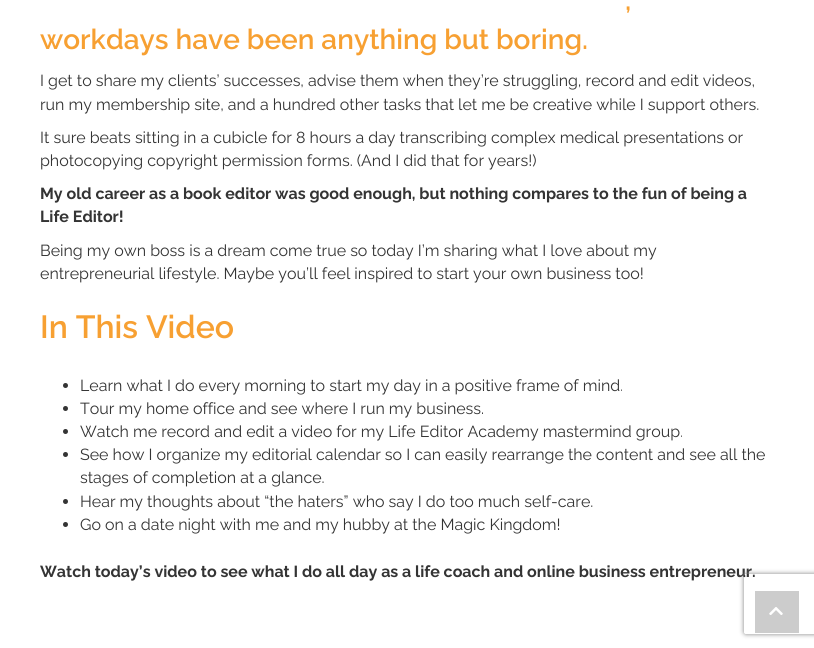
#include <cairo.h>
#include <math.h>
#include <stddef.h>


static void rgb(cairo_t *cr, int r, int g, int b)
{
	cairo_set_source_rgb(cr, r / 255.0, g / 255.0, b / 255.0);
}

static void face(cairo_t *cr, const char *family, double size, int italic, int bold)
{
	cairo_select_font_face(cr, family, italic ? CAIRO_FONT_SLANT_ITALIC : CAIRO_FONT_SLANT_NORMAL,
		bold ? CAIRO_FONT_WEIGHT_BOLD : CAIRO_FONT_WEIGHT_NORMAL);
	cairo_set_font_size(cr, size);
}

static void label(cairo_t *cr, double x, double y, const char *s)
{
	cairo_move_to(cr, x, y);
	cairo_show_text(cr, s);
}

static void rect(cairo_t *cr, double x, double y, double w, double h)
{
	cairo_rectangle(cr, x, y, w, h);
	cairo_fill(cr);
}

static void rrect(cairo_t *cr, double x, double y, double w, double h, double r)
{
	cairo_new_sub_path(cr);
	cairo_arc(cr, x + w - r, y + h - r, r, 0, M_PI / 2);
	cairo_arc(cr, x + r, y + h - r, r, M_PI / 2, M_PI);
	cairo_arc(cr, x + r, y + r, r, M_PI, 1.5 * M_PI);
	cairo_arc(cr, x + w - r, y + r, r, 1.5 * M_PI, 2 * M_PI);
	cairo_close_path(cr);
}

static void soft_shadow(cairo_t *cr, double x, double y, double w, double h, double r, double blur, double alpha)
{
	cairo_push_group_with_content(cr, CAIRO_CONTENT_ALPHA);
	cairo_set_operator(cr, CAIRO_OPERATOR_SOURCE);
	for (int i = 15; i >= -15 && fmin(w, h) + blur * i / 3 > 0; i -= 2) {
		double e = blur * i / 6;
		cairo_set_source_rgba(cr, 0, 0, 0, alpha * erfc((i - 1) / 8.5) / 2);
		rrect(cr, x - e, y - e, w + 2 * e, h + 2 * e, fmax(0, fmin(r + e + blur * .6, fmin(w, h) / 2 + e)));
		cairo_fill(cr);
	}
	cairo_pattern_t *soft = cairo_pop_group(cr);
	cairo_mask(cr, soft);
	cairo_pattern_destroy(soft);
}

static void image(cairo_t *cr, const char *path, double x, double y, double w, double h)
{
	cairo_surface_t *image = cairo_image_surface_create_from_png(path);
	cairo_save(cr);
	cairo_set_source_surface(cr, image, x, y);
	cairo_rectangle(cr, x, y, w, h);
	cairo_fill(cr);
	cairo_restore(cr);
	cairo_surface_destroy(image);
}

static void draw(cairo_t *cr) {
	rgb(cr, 255, 255, 255);
	cairo_paint(cr);
	face(cr, "Raleway SemiBold", 28, 0, 0);
	rgb(cr, 247, 160, 50);
	label(cr, 625, 10, ",");
	label(cr, 40, 49, "workdays have been anything but boring.");
	face(cr, "Raleway", 16, 0, 0);
	rgb(cr, 52, 52, 52);
	label(cr, 40, 86, "I get to share my clients’ successes, advise them when they’re struggling, record and edit videos,");
	label(cr, 40, 110, "run my membership site, and a hundred other tasks that let me be creative while I support others.");
	label(cr, 40, 143, "It sure beats sitting in a cubicle for 8 hours a day transcribing complex medical presentations or");
	label(cr, 40, 166, "photocopying copyright permission forms. (And I did that for years!)");
	face(cr, "Raleway", 16, 0, 1);
	label(cr, 40, 199, "My old career as a book editor was good enough, but nothing compares to the fun of being a");
	label(cr, 40, 222, "Life Editor!");
	face(cr, "Raleway", 16, 0, 0);
	label(cr, 40, 256, "Being my own boss is a dream come true so today I’m sharing what I love about my");
	label(cr, 40, 279, "entrepreneurial lifestyle. Maybe you’ll feel inspired to start your own business too!");
	face(cr, "Raleway SemiBold", 32, 0, 0);
	rgb(cr, 247, 160, 50);
	label(cr, 40, 338, "In This Video");
	rgb(cr, 52, 52, 52);
	cairo_new_path(cr);
	cairo_arc(cr, 65.5, 385.5, 2.5, 0, 2 * M_PI);
	cairo_fill(cr);
	face(cr, "Raleway", 16, 0, 0);
	label(cr, 80, 391, "Learn what I do every morning to start my day in a positive frame of mind.");
	cairo_new_path(cr);
	cairo_arc(cr, 65.5, 408.5, 2.5, 0, 2 * M_PI);
	cairo_fill(cr);
	label(cr, 80, 414, "Tour my home office and see where I run my business.");
	cairo_new_path(cr);
	cairo_arc(cr, 65.5, 431.5, 2.5, 0, 2 * M_PI);
	cairo_fill(cr);
	label(cr, 80, 437, "Watch me record and edit a video for my Life Editor Academy mastermind group.");
	cairo_new_path(cr);
	cairo_arc(cr, 65.5, 454.5, 2.5, 0, 2 * M_PI);
	cairo_fill(cr);
	label(cr, 80, 460, "See how I organize my editorial calendar so I can easily rearrange the content and see all the");
	label(cr, 80, 483, "stages of completion at a glance.");
	cairo_new_path(cr);
	cairo_arc(cr, 65.5, 501.5, 2.5, 0, 2 * M_PI);
	cairo_fill(cr);
	label(cr, 80, 507, "Hear my thoughts about “the haters” who say I do too much self-care.");
	cairo_new_path(cr);
	cairo_arc(cr, 65.5, 524.5, 2.5, 0, 2 * M_PI);
	cairo_fill(cr);
	label(cr, 80, 530, "Go on a date night with me and my hubby at the Magic Kingdom!");
	face(cr, "Raleway", 16, 0, 1);
	label(cr, 40, 577, "Watch today’s video to see what I do all day as a life coach and online business entrepreneur.");
	cairo_save(cr);
	cairo_set_fill_rule(cr, CAIRO_FILL_RULE_EVEN_ODD);
	cairo_new_path(cr);
	cairo_move_to(cr, 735, 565);
	cairo_line_to(cr, 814, 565);
	cairo_line_to(cr, 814, 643);
	cairo_line_to(cr, 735, 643);
	cairo_close_path(cr);
	cairo_move_to(cr, 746, 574);
	cairo_line_to(cr, 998, 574);
	cairo_curve_to(cr, 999, 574, 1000, 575, 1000, 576);
	cairo_line_to(cr, 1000, 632);
	cairo_curve_to(cr, 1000, 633, 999, 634, 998, 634);
	cairo_line_to(cr, 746, 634);
	cairo_curve_to(cr, 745, 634, 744, 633, 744, 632);
	cairo_line_to(cr, 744, 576);
	cairo_curve_to(cr, 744, 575, 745, 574, 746, 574);
	cairo_close_path(cr);
	cairo_clip(cr);
	rgb(cr, 128, 128, 128);
	soft_shadow(cr, 744, 574, 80, 60, 2, 2.5, 1);
	cairo_restore(cr);
	rgb(cr, 204, 204, 204);
	rect(cr, 755, 591, 44, 42);
	image(cr, "image0.png", 769, 607, 14, 8);
}

int main(void) {
	cairo_surface_t *surface = cairo_image_surface_create(CAIRO_FORMAT_RGB24, 814, 648);
	cairo_t *cr = cairo_create(surface);
	cairo_font_options_t *options = cairo_font_options_create();
	cairo_font_options_set_hint_metrics(options, CAIRO_HINT_METRICS_OFF);
	cairo_font_options_set_hint_style(options, CAIRO_HINT_STYLE_NONE);
	cairo_set_font_options(cr, options);
	cairo_set_miter_limit(cr, 4);
	draw(cr);
	cairo_surface_write_to_png(surface, "render.png");
	cairo_font_options_destroy(options);
	cairo_destroy(cr);
	cairo_surface_destroy(surface);
	return 0;
}
